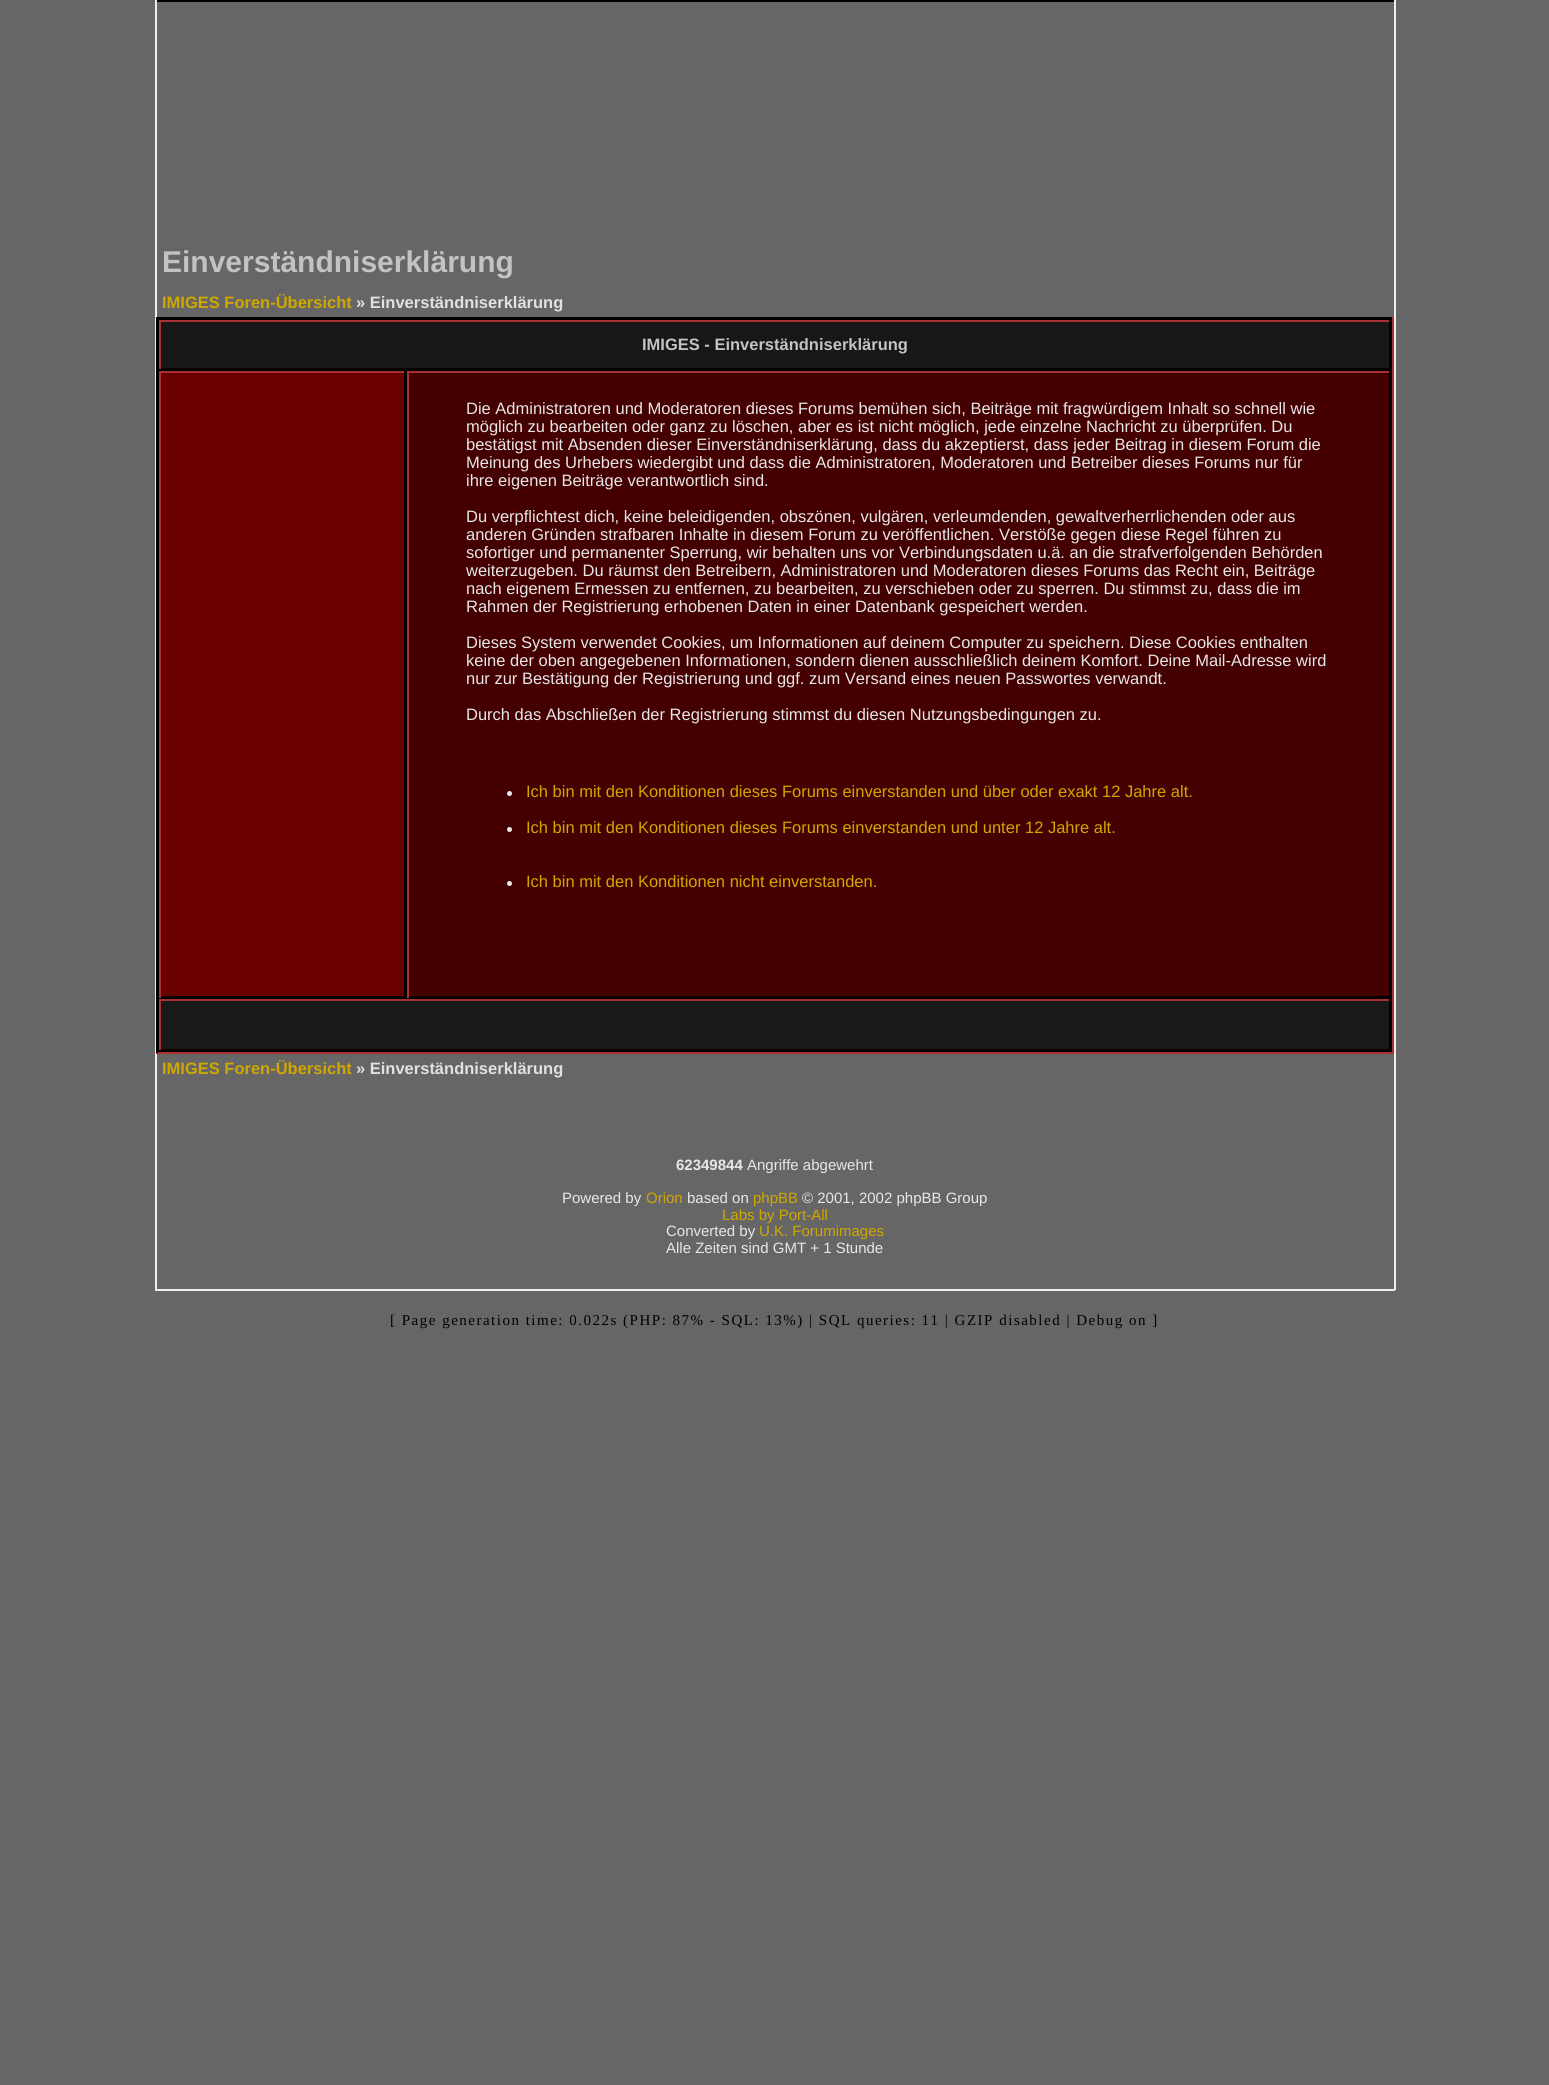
#include <cairo.h>
#include <math.h>
#include <stddef.h>


static void rgb(cairo_t *cr, int r, int g, int b)
{
	cairo_set_source_rgb(cr, r / 255.0, g / 255.0, b / 255.0);
}

static void face(cairo_t *cr, const char *family, double size, int italic, int bold)
{
	cairo_select_font_face(cr, family, italic ? CAIRO_FONT_SLANT_ITALIC : CAIRO_FONT_SLANT_NORMAL,
		bold ? CAIRO_FONT_WEIGHT_BOLD : CAIRO_FONT_WEIGHT_NORMAL);
	cairo_set_font_size(cr, size);
}

static void label(cairo_t *cr, double x, double y, const char *s)
{
	cairo_move_to(cr, x, y);
	cairo_show_text(cr, s);
}

static void tracked(cairo_t *cr, double x, double y, const char *s, double letter, double word)
{
	cairo_move_to(cr, x, y);
	while (*s) {
		char ch[5] = {0};
		int n = 0;
		do ch[n++] = *s++; while ((*s & 0xC0) == 0x80);
		cairo_show_text(cr, ch);
		cairo_rel_move_to(cr, letter + word * (*ch == ' '), 0);
	}
}

static void rect(cairo_t *cr, double x, double y, double w, double h)
{
	cairo_rectangle(cr, x, y, w, h);
	cairo_fill(cr);
}

static void draw(cairo_t *cr) {
	rgb(cr, 102, 102, 102);
	cairo_paint(cr);
	rgb(cr, 0, 0, 0);
	rect(cr, 155, 0, 1240, 2);
	rgb(cr, 238, 238, 238);
	rect(cr, 1394, 0, 2, 1290);
	rect(cr, 155, 1289, 1240, 2);
	rect(cr, 155, 0, 2, 1290);
	face(cr, "Liberation Sans", 30, 0, 1);
	rgb(cr, 195, 195, 195);
	label(cr, 162, 272, "Einverständniserklärung");
	face(cr, "Liberation Sans", 16.5, 0, 1);
	rgb(cr, 208, 167, 0);
	label(cr, 162, 308, "IMIGES Foren-Übersicht");
	rgb(cr, 225, 225, 225);
	label(cr, 356, 308, "» Einverständniserklärung");
	rgb(cr, 0, 0, 0);
	rect(cr, 158, 317, 1234, 735);
	rgb(cr, 169, 49, 49);
	rect(cr, 1392, 317, 2, 736);
	rect(cr, 156, 1052, 1238, 2);
	rgb(cr, 0, 0, 0);
	rect(cr, 156, 317, 2, 736);
	rgb(cr, 23, 23, 23);
	rect(cr, 161, 322, 1228, 46);
	rgb(cr, 169, 49, 49);
	rect(cr, 159, 320, 1232, 2);
	rgb(cr, 0, 0, 0);
	rect(cr, 1389, 320, 2, 2);
	rgb(cr, 169, 49, 49);
	rect(cr, 159, 320, 2, 49);
	rgb(cr, 195, 195, 195);
	label(cr, 642, 350, "IMIGES - Einverständniserklärung");
	rgb(cr, 106, 0, 0);
	rect(cr, 161, 373, 243, 623);
	rgb(cr, 169, 49, 49);
	rect(cr, 159, 371, 246, 2);
	rgb(cr, 0, 0, 0);
	rect(cr, 404, 371, 1, 2);
	rgb(cr, 169, 49, 49);
	rect(cr, 159, 371, 2, 627);
	rgb(cr, 68, 0, 0);
	rect(cr, 409, 373, 980, 623);
	rgb(cr, 169, 49, 49);
	rect(cr, 407, 371, 984, 2);
	rgb(cr, 0, 0, 0);
	rect(cr, 1389, 371, 2, 2);
	rgb(cr, 169, 49, 49);
	rect(cr, 407, 371, 2, 627);
	face(cr, "Liberation Sans", 16.5, 0, 0);
	rgb(cr, 231, 231, 231);
	label(cr, 466, 414, "Die Administratoren und Moderatoren dieses Forums bemühen sich, Beiträge mit fragwürdigem Inhalt so schnell wie");
	label(cr, 466, 432, "möglich zu bearbeiten oder ganz zu löschen, aber es ist nicht möglich, jede einzelne Nachricht zu überprüfen. Du");
	label(cr, 466, 450, "bestätigst mit Absenden dieser Einverständniserklärung, dass du akzeptierst, dass jeder Beitrag in diesem Forum die");
	label(cr, 466, 468, "Meinung des Urhebers wiedergibt und dass die Administratoren, Moderatoren und Betreiber dieses Forums nur für");
	label(cr, 466, 486, "ihre eigenen Beiträge verantwortlich sind.");
	label(cr, 466, 522, "Du verpflichtest dich, keine beleidigenden, obszönen, vulgären, verleumdenden, gewaltverherrlichenden oder aus");
	label(cr, 466, 540, "anderen Gründen strafbaren Inhalte in diesem Forum zu veröffentlichen. Verstöße gegen diese Regel führen zu");
	label(cr, 466, 558, "sofortiger und permanenter Sperrung, wir behalten uns vor Verbindungsdaten u.ä. an die strafverfolgenden Behörden");
	label(cr, 466, 576, "weiterzugeben. Du räumst den Betreibern, Administratoren und Moderatoren dieses Forums das Recht ein, Beiträge");
	label(cr, 466, 594, "nach eigenem Ermessen zu entfernen, zu bearbeiten, zu verschieben oder zu sperren. Du stimmst zu, dass die im");
	label(cr, 466, 612, "Rahmen der Registrierung erhobenen Daten in einer Datenbank gespeichert werden.");
	label(cr, 466, 648, "Dieses System verwendet Cookies, um Informationen auf deinem Computer zu speichern. Diese Cookies enthalten");
	label(cr, 466, 666, "keine der oben angegebenen Informationen, sondern dienen ausschließlich deinem Komfort. Deine Mail-Adresse wird");
	label(cr, 466, 684, "nur zur Bestätigung der Registrierung und ggf. zum Versand eines neuen Passwortes verwandt.");
	label(cr, 466, 720, "Durch das Abschließen der Registrierung stimmst du diesen Nutzungsbedingungen zu.");
	cairo_new_path(cr);
	cairo_arc(cr, 509.5, 793.5, 2.5, 0, 2 * M_PI);
	cairo_fill(cr);
	rgb(cr, 208, 167, 0);
	label(cr, 526, 797, "Ich bin mit den Konditionen dieses Forums einverstanden und über oder exakt 12 Jahre alt.");
	rgb(cr, 231, 231, 231);
	cairo_new_path(cr);
	cairo_arc(cr, 509.5, 829.5, 2.5, 0, 2 * M_PI);
	cairo_fill(cr);
	rgb(cr, 208, 167, 0);
	label(cr, 526, 833, "Ich bin mit den Konditionen dieses Forums einverstanden und unter 12 Jahre alt.");
	rgb(cr, 231, 231, 231);
	cairo_new_path(cr);
	cairo_arc(cr, 509.5, 883.5, 2.5, 0, 2 * M_PI);
	cairo_fill(cr);
	rgb(cr, 208, 167, 0);
	label(cr, 526, 887, "Ich bin mit den Konditionen nicht einverstanden.");
	rgb(cr, 25, 25, 25);
	rect(cr, 161, 1001, 1228, 48);
	rgb(cr, 169, 49, 49);
	rect(cr, 159, 999, 1232, 2);
	rgb(cr, 0, 0, 0);
	rect(cr, 1389, 999, 2, 2);
	rgb(cr, 169, 49, 49);
	rect(cr, 159, 999, 2, 51);
	face(cr, "Liberation Sans", 16.5, 0, 1);
	rgb(cr, 208, 167, 0);
	label(cr, 162, 1074, "IMIGES Foren-Übersicht");
	rgb(cr, 225, 225, 225);
	label(cr, 356, 1074, "» Einverständniserklärung");
	face(cr, "Liberation Sans", 15, 0, 1);
	rgb(cr, 231, 231, 231);
	label(cr, 676, 1170, "62349844");
	face(cr, "Liberation Sans", 15, 0, 0);
	label(cr, 747, 1170, "Angriffe abgewehrt");
	label(cr, 562, 1203, "Powered by");
	rgb(cr, 208, 167, 0);
	label(cr, 646, 1203, "Orion");
	rgb(cr, 231, 231, 231);
	label(cr, 687, 1203, "based on");
	rgb(cr, 208, 167, 0);
	label(cr, 753, 1203, "phpBB");
	rgb(cr, 231, 231, 231);
	label(cr, 802, 1203, "© 2001, 2002 phpBB Group");
	rgb(cr, 208, 167, 0);
	label(cr, 722, 1220, "Labs by Port-All");
	rgb(cr, 231, 231, 231);
	label(cr, 666, 1236, "Converted by");
	rgb(cr, 208, 167, 0);
	label(cr, 759, 1236, "U.K. Forumimages");
	rgb(cr, 231, 231, 231);
	label(cr, 666, 1253, "Alle Zeiten sind GMT + 1 Stunde");
	face(cr, "Liberation Serif", 15, 0, 0);
	rgb(cr, 0, 0, 0);
	tracked(cr, 390, 1325, "[ Page generation time: 0.022s (PHP: 87% - SQL: 13%) | SQL queries: 11 | GZIP disabled | Debug on ]", 1.5, 0);
}

int main(void) {
	cairo_surface_t *surface = cairo_image_surface_create(CAIRO_FORMAT_RGB24, 1549, 2085);
	cairo_t *cr = cairo_create(surface);
	cairo_font_options_t *options = cairo_font_options_create();
	cairo_font_options_set_hint_metrics(options, CAIRO_HINT_METRICS_OFF);
	cairo_font_options_set_hint_style(options, CAIRO_HINT_STYLE_NONE);
	cairo_set_font_options(cr, options);
	cairo_set_miter_limit(cr, 4);
	draw(cr);
	cairo_surface_write_to_png(surface, "render.png");
	cairo_font_options_destroy(options);
	cairo_destroy(cr);
	cairo_surface_destroy(surface);
	return 0;
}
